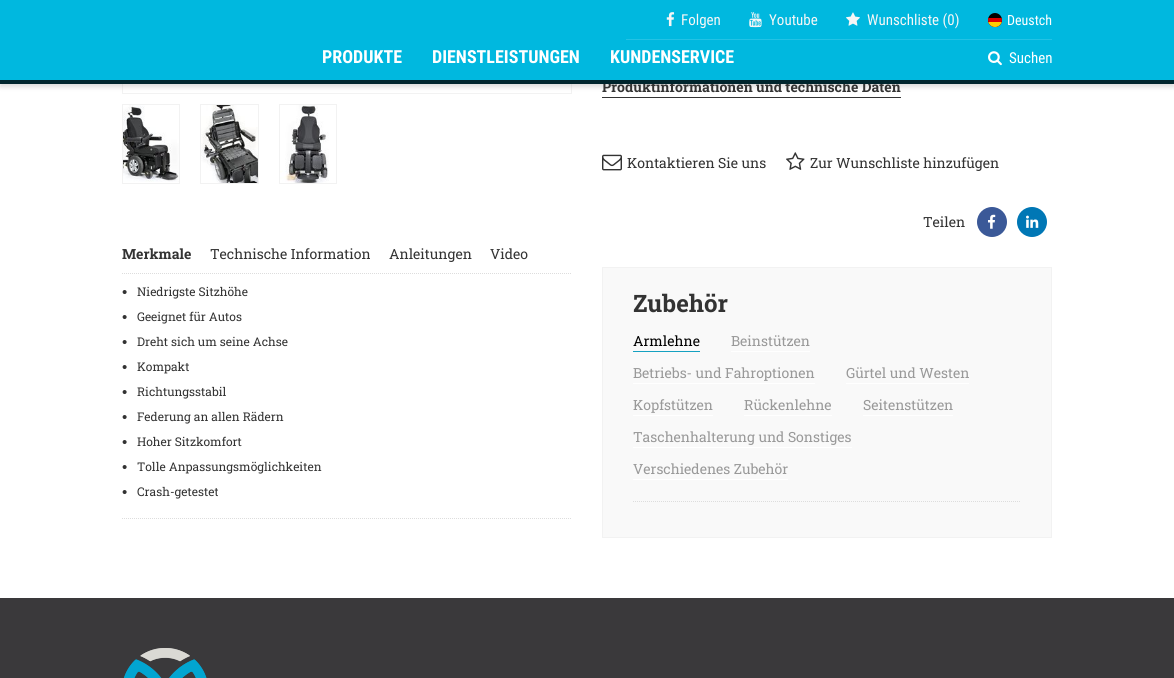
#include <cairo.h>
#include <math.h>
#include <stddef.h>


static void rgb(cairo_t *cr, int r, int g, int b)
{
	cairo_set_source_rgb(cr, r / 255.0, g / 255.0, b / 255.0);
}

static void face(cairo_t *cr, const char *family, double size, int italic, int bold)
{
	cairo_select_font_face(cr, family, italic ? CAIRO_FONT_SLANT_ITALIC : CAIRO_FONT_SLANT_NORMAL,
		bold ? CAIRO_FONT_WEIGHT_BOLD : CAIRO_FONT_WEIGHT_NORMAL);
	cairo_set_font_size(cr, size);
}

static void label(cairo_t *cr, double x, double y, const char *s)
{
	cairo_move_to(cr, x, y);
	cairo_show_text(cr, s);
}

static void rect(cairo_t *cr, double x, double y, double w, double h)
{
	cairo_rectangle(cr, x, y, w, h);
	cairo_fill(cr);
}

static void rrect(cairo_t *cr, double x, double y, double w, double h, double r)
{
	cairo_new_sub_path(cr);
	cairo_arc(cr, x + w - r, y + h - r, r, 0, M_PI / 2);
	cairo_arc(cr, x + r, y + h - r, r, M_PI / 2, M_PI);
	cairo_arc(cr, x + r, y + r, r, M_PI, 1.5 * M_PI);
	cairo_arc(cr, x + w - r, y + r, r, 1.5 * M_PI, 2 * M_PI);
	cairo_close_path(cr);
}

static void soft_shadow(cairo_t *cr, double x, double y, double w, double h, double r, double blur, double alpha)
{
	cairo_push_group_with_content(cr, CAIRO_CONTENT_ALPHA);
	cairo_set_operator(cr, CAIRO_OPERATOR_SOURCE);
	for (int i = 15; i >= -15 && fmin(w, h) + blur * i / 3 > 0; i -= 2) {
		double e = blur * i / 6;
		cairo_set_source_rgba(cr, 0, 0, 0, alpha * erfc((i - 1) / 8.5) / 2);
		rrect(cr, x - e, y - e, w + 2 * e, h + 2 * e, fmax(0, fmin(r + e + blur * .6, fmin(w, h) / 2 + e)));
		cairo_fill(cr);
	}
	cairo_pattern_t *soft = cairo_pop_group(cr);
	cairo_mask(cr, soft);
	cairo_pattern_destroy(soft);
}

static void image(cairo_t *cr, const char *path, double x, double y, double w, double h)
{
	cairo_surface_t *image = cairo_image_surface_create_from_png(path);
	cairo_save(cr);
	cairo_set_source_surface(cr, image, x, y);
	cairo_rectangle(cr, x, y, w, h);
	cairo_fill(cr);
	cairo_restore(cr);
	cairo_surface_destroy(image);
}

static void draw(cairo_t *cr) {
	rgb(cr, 255, 255, 255);
	cairo_paint(cr);
	cairo_rectangle(cr, 122.5, -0.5, 449, 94);
	rgb(cr, 242, 242, 242);
	cairo_set_line_width(cr, 1);
	cairo_stroke(cr);
	rgb(cr, 0, 0, 0);
	soft_shadow(cr, 0, 3, 1174, 84, 0, 2.5, 0.15);
	face(cr, "Roboto Slab", 14, 0, 1);
	rgb(cr, 51, 51, 51);
	label(cr, 602, 92, "Produktinformationen und technische Daten");
	rgb(cr, 0, 37, 45);
	rect(cr, 0, 80, 1174, 4);
	rgb(cr, 0, 184, 223);
	rect(cr, 0, 0, 1174, 80);
	rgb(cr, 36, 194, 228);
	rect(cr, 626, 39, 426, 1);
	image(cr, "image0.png", 666, 12, 9, 15);
	face(cr, "Roboto Condensed", 15, 0, 0);
	rgb(cr, 246, 246, 246);
	label(cr, 681, 25, "Folgen");
	image(cr, "image1.png", 749, 12, 13, 16);
	label(cr, 769, 25, "Youtube");
	image(cr, "image2.png", 846, 12, 14, 14);
	label(cr, 867, 25, "Wunschliste (0)");
	rgb(cr, 0, 0, 0);
	cairo_new_path(cr);
	cairo_arc(cr, 995, 20, 7, 0, 2 * M_PI);
	cairo_fill(cr);
	cairo_save(cr);
	rrect(cr, 988, 13, 14, 14, 7);
	cairo_clip(cr);
	rgb(cr, 221, 0, 0);
	cairo_new_path(cr);
	cairo_move_to(cr, 988, 18);
	cairo_line_to(cr, 1002, 18);
	cairo_line_to(cr, 1002, 20);
	cairo_curve_to(cr, 1002, 24, 999, 27, 995, 27);
	cairo_curve_to(cr, 991, 27, 988, 24, 988, 20);
	cairo_close_path(cr);
	cairo_fill(cr);
	rgb(cr, 255, 206, 0);
	rect(cr, 988, 22, 14, 5);
	cairo_restore(cr);
	face(cr, "Roboto Condensed", 14, 0, 0);
	rgb(cr, 255, 255, 255);
	label(cr, 1007, 25, "Deustch");
	face(cr, "Roboto Condensed", 18, 0, 1);
	label(cr, 322, 63, "PRODUKTE");
	label(cr, 432, 63, "DIENSTLEISTUNGEN");
	label(cr, 610, 63, "KUNDENSERVICE");
	image(cr, "image3.png", 988, 51, 14, 15);
	face(cr, "Roboto Condensed", 15, 0, 0);
	label(cr, 1009, 63, "Suchen");
	cairo_rectangle(cr, 122.5, 104.5, 57, 79);
	rgb(cr, 242, 242, 242);
	cairo_stroke(cr);
	image(cr, "image4.png", 123, 105, 56, 77);
	cairo_rectangle(cr, 200.5, 104.5, 58, 79);
	cairo_stroke(cr);
	image(cr, "image5.png", 201, 105, 57, 78);
	cairo_rectangle(cr, 279.5, 104.5, 57, 79);
	cairo_stroke(cr);
	image(cr, "image6.png", 280, 105, 49, 78);
	image(cr, "image7.png", 122, 273, 449, 1);
	face(cr, "Roboto Slab", 14, 0, 1);
	rgb(cr, 51, 51, 51);
	label(cr, 122, 259, "Merkmale");
	face(cr, "Roboto Slab", 14, 0, 0);
	label(cr, 210, 259, "Technische Information");
	label(cr, 389, 259, "Anleitungen");
	label(cr, 490, 259, "Video");
	image(cr, "image7.png", 122, 518, 449, 1);
	face(cr, "Liberation Sans", 15, 0, 0);
	label(cr, 122, 297, "•");
	face(cr, "Roboto Slab", 12, 0, 0);
	label(cr, 137, 296, "Niedrigste Sitzhöhe");
	face(cr, "Liberation Sans", 15, 0, 0);
	label(cr, 122, 322, "•");
	face(cr, "Roboto Slab", 12, 0, 0);
	label(cr, 137, 321, "Geeignet für Autos");
	face(cr, "Liberation Sans", 15, 0, 0);
	label(cr, 122, 347, "•");
	face(cr, "Roboto Slab", 12, 0, 0);
	label(cr, 137, 346, "Dreht sich um seine Achse");
	face(cr, "Liberation Sans", 15, 0, 0);
	label(cr, 122, 372, "•");
	face(cr, "Roboto Slab", 12, 0, 0);
	label(cr, 137, 371, "Kompakt");
	face(cr, "Liberation Sans", 15, 0, 0);
	label(cr, 122, 397, "•");
	face(cr, "Roboto Slab", 12, 0, 0);
	label(cr, 137, 396, "Richtungsstabil");
	face(cr, "Liberation Sans", 15, 0, 0);
	label(cr, 122, 422, "•");
	face(cr, "Roboto Slab", 12, 0, 0);
	label(cr, 137, 421, "Federung an allen Rädern");
	face(cr, "Liberation Sans", 15, 0, 0);
	label(cr, 122, 447, "•");
	face(cr, "Roboto Slab", 12, 0, 0);
	label(cr, 137, 446, "Hoher Sitzkomfort");
	face(cr, "Liberation Sans", 15, 0, 0);
	label(cr, 122, 472, "•");
	face(cr, "Roboto Slab", 12, 0, 0);
	label(cr, 137, 471, "Tolle Anpassungsmöglichkeiten");
	face(cr, "Liberation Sans", 15, 0, 0);
	label(cr, 122, 497, "•");
	face(cr, "Roboto Slab", 12, 0, 0);
	label(cr, 137, 496, "Crash-getestet");
	rect(cr, 602, 97, 299, 1);
	image(cr, "image8.png", 602, 154, 20, 17);
	face(cr, "Roboto Slab", 14, 0, 0);
	label(cr, 627, 168, "Kontaktieren Sie uns");
	image(cr, "image9.png", 786, 152, 19, 18);
	label(cr, 810, 168, "Zur Wunschliste hinzufügen");
	label(cr, 923, 227, "Teilen");
	rgb(cr, 59, 89, 152);
	cairo_new_path(cr);
	cairo_arc(cr, 992, 222, 15, 0, 2 * M_PI);
	cairo_fill(cr);
	image(cr, "image10.png", 988, 214, 8, 15);
	rgb(cr, 0, 119, 181);
	cairo_arc(cr, 1032, 222, 15, 0, 2 * M_PI);
	cairo_fill(cr);
	image(cr, "image11.png", 1026, 215, 13, 13);
	rgb(cr, 249, 249, 249);
	cairo_rectangle(cr, 602.5, 267.5, 449, 270);
	cairo_fill_preserve(cr);
	rgb(cr, 242, 242, 242);
	cairo_stroke(cr);
	face(cr, "Roboto Slab", 24, 0, 1);
	rgb(cr, 51, 51, 51);
	label(cr, 633, 312, "Zubehör");
	rgb(cr, 21, 161, 193);
	rect(cr, 633, 351, 67, 1);
	face(cr, "Roboto Slab", 14, 0, 0);
	rgb(cr, 0, 0, 0);
	label(cr, 633, 346, "Armlehne");
	rgb(cr, 255, 255, 255);
	rect(cr, 731, 351, 79, 1);
	rgb(cr, 153, 153, 153);
	label(cr, 731, 346, "Beinstützen");
	rgb(cr, 255, 255, 255);
	rect(cr, 633, 383, 182, 1);
	rgb(cr, 153, 153, 153);
	label(cr, 633, 378, "Betriebs- und Fahroptionen");
	rgb(cr, 255, 255, 255);
	rect(cr, 846, 383, 123, 1);
	rgb(cr, 153, 153, 153);
	label(cr, 846, 378, "Gürtel und Westen");
	rgb(cr, 255, 255, 255);
	rect(cr, 633, 415, 80, 1);
	rgb(cr, 153, 153, 153);
	label(cr, 633, 410, "Kopfstützen");
	rgb(cr, 255, 255, 255);
	rect(cr, 744, 415, 88, 1);
	rgb(cr, 153, 153, 153);
	label(cr, 744, 410, "Rückenlehne");
	rgb(cr, 255, 255, 255);
	rect(cr, 863, 415, 90, 1);
	rgb(cr, 153, 153, 153);
	label(cr, 863, 410, "Seitenstützen");
	rgb(cr, 255, 255, 255);
	rect(cr, 633, 447, 219, 1);
	rgb(cr, 153, 153, 153);
	label(cr, 633, 442, "Taschenhalterung und Sonstiges");
	rgb(cr, 255, 255, 255);
	rect(cr, 633, 479, 155, 1);
	rgb(cr, 153, 153, 153);
	label(cr, 633, 474, "Verschiedenes Zubehör");
	image(cr, "image12.png", 633, 501, 387, 1);
	rgb(cr, 58, 57, 59);
	rect(cr, 0, 598, 1174, 80);
	image(cr, "image13.png", 124, 648, 83, 30);
}

int main(void) {
	cairo_surface_t *surface = cairo_image_surface_create(CAIRO_FORMAT_RGB24, 1174, 678);
	cairo_t *cr = cairo_create(surface);
	cairo_font_options_t *options = cairo_font_options_create();
	cairo_font_options_set_hint_metrics(options, CAIRO_HINT_METRICS_OFF);
	cairo_font_options_set_hint_style(options, CAIRO_HINT_STYLE_NONE);
	cairo_set_font_options(cr, options);
	cairo_set_miter_limit(cr, 4);
	draw(cr);
	cairo_surface_write_to_png(surface, "render.png");
	cairo_font_options_destroy(options);
	cairo_destroy(cr);
	cairo_surface_destroy(surface);
	return 0;
}
